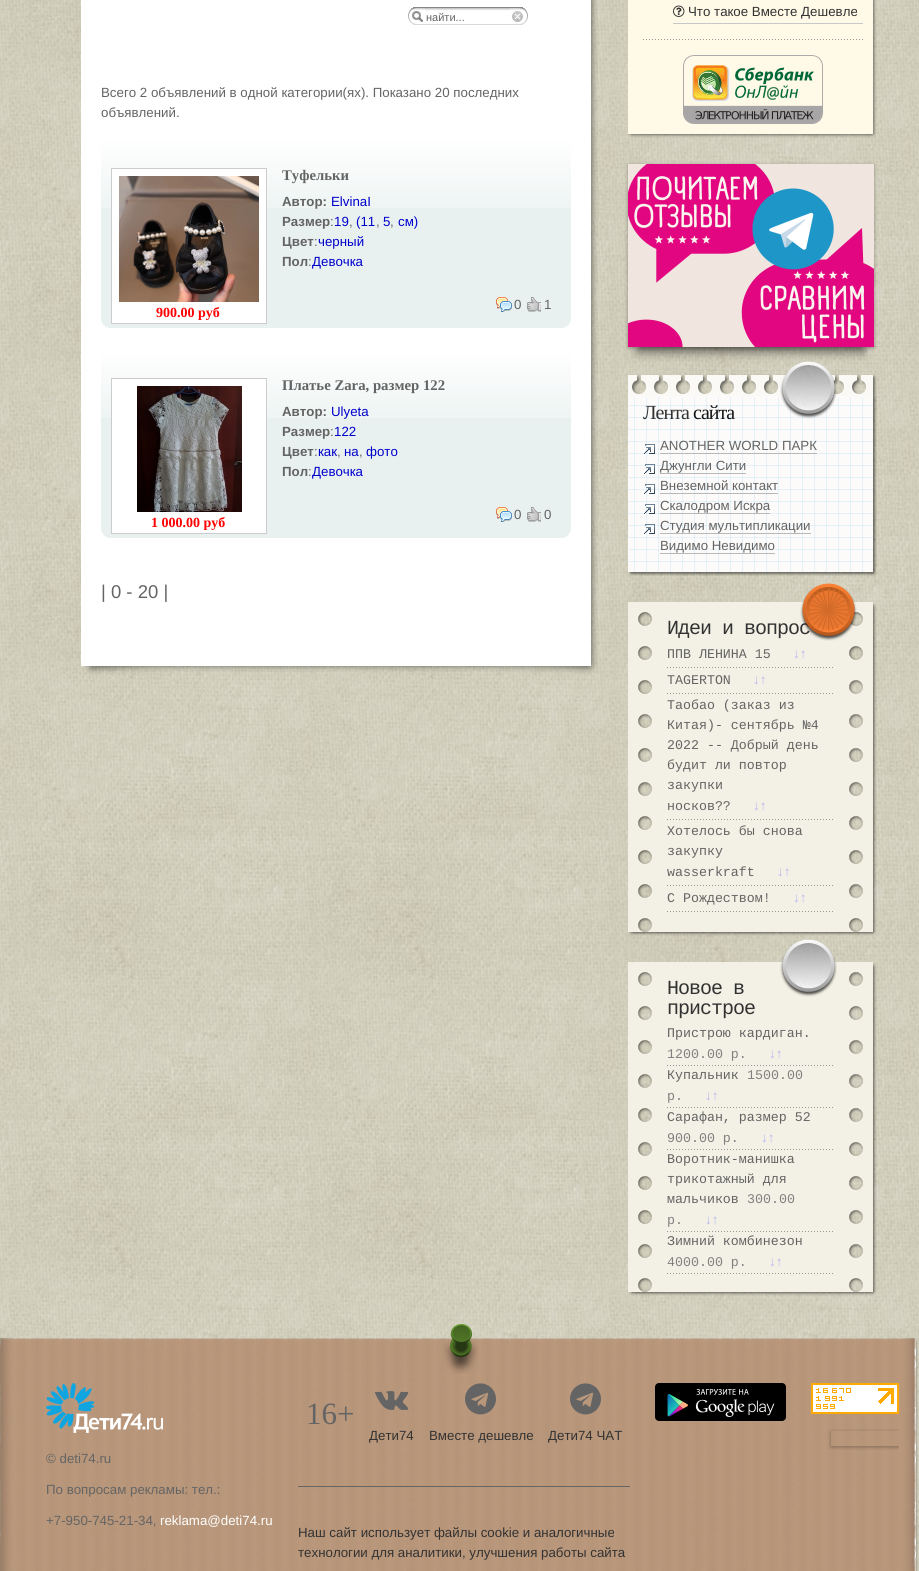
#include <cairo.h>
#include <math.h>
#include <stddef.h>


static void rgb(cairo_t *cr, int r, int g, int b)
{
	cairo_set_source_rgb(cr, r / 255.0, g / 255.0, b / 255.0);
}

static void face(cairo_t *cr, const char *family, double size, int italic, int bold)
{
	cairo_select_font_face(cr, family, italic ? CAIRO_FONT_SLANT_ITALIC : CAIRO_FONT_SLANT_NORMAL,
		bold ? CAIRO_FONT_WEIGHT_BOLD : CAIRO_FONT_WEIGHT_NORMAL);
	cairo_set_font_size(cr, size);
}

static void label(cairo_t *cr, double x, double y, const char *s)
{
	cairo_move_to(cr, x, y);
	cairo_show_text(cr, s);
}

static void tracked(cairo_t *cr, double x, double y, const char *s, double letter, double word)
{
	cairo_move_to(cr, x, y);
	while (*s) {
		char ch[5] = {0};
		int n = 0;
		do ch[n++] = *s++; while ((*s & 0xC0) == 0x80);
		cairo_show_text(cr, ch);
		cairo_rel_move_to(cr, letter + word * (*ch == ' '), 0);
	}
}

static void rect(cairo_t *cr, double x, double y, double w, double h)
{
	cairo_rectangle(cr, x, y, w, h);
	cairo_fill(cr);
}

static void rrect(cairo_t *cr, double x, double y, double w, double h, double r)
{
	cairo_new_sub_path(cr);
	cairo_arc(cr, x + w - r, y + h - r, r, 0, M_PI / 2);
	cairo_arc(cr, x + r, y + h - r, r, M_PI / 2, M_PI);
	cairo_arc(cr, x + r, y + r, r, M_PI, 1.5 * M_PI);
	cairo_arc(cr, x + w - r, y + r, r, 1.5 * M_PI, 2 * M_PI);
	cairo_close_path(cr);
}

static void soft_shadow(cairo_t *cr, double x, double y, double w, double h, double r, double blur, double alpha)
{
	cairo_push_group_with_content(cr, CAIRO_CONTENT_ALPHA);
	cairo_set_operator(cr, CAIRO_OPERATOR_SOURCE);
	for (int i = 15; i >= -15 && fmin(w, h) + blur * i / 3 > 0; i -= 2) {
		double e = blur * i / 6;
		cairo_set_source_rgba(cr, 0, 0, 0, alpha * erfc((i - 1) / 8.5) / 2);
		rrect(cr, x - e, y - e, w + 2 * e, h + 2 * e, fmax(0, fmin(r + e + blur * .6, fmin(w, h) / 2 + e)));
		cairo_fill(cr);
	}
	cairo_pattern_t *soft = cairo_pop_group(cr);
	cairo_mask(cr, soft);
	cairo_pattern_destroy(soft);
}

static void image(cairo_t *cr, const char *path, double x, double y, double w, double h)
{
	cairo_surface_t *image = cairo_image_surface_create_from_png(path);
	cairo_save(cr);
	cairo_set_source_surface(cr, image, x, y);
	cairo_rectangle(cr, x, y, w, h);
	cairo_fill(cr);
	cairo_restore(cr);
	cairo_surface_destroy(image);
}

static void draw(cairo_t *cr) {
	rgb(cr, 255, 255, 255);
	cairo_paint(cr);
	image(cr, "image0.png", 0, 0, 919, 1571);
	image(cr, "image1.png", 591, 0, 7, 661);
	rgb(cr, 255, 255, 255);
	rect(cr, 81, 0, 510, 661);
	image(cr, "image2.png", 408, 7, 120, 18);
	image(cr, "image3.png", 408, 7, 17, 18);
	face(cr, "Liberation Sans", 11, 0, 0);
	rgb(cr, 100, 100, 100);
	label(cr, 426, 21, "найти...");
	image(cr, "image4.png", 510, 7, 18, 18);
	face(cr, "Liberation Sans", 13.3, 0, 0);
	label(cr, 101, 97, "Всего 2 объявлений в одной категории(ях). Показано 20 последних");
	label(cr, 101, 117, "объявлений.");
	rgb(cr, 233, 241, 240);
	rect(cr, 101, 208, 470, 120);
	image(cr, "image5.png", 101, 138, 470, 70);
	face(cr, "Liberation Serif", 14.75, 0, 1);
	rgb(cr, 100, 100, 100);
	label(cr, 282, 180, "Туфельки");
	face(cr, "Liberation Sans", 13.3, 0, 1);
	label(cr, 282, 206, "Автор:");
	face(cr, "Liberation Sans", 13.3, 0, 0);
	rgb(cr, 0, 0, 204);
	label(cr, 331, 206, "ElvinaI");
	face(cr, "Liberation Sans", 13.3, 0, 1);
	rgb(cr, 100, 100, 100);
	label(cr, 282, 226, "Размер");
	face(cr, "Liberation Sans", 13.3, 0, 0);
	label(cr, 330, 226, ":");
	rgb(cr, 0, 0, 204);
	label(cr, 334, 226, "19");
	rgb(cr, 100, 100, 100);
	label(cr, 349, 226, ",");
	rgb(cr, 0, 0, 204);
	label(cr, 356, 226, "(11");
	rgb(cr, 100, 100, 100);
	label(cr, 376, 226, ",");
	rgb(cr, 0, 0, 204);
	label(cr, 383, 226, "5");
	rgb(cr, 100, 100, 100);
	label(cr, 390, 226, ",");
	rgb(cr, 0, 0, 204);
	label(cr, 398, 226, "см)");
	face(cr, "Liberation Sans", 13.3, 0, 1);
	rgb(cr, 100, 100, 100);
	label(cr, 282, 246, "Цвет");
	face(cr, "Liberation Sans", 13.3, 0, 0);
	label(cr, 314, 246, ":");
	rgb(cr, 0, 0, 204);
	label(cr, 318, 246, "черный");
	face(cr, "Liberation Sans", 13.3, 0, 1);
	rgb(cr, 100, 100, 100);
	label(cr, 282, 266, "Пол");
	face(cr, "Liberation Sans", 13.3, 0, 0);
	label(cr, 308, 266, ":");
	rgb(cr, 0, 0, 204);
	label(cr, 312, 266, "Девочка");
	image(cr, "image6.png", 496, 297, 16, 15);
	rgb(cr, 100, 100, 100);
	label(cr, 514, 309, "0");
	image(cr, "image7.png", 527, 297, 14, 15);
	label(cr, 544, 309, "1");
	rgb(cr, 255, 255, 255);
	cairo_rectangle(cr, 111.5, 168.5, 155, 155);
	cairo_fill_preserve(cr);
	rgb(cr, 204, 204, 204);
	cairo_set_line_width(cr, 1);
	cairo_stroke(cr);
	image(cr, "image8.png", 119, 176, 140, 126);
	face(cr, "Liberation Serif", 14, 0, 1);
	rgb(cr, 255, 0, 0);
	label(cr, 156, 317, "900.00 руб");
	image(cr, "image9.png", 101, 320, 8, 8);
	image(cr, "image10.png", 563, 320, 8, 8);
	rgb(cr, 233, 241, 240);
	rect(cr, 101, 418, 470, 120);
	image(cr, "image5.png", 101, 348, 470, 70);
	face(cr, "Liberation Serif", 14.75, 0, 1);
	rgb(cr, 100, 100, 100);
	label(cr, 282, 390, "Платье Zara, размер 122");
	face(cr, "Liberation Sans", 13.3, 0, 1);
	label(cr, 282, 416, "Автор:");
	face(cr, "Liberation Sans", 13.3, 0, 0);
	rgb(cr, 0, 0, 204);
	label(cr, 331, 416, "Ulyeta");
	face(cr, "Liberation Sans", 13.3, 0, 1);
	rgb(cr, 100, 100, 100);
	label(cr, 282, 436, "Размер");
	face(cr, "Liberation Sans", 13.3, 0, 0);
	label(cr, 330, 436, ":");
	rgb(cr, 0, 0, 204);
	label(cr, 334, 436, "122");
	face(cr, "Liberation Sans", 13.3, 0, 1);
	rgb(cr, 100, 100, 100);
	label(cr, 282, 456, "Цвет");
	face(cr, "Liberation Sans", 13.3, 0, 0);
	label(cr, 314, 456, ":");
	rgb(cr, 0, 0, 204);
	label(cr, 318, 456, "как");
	rgb(cr, 100, 100, 100);
	label(cr, 337, 456, ",");
	rgb(cr, 0, 0, 204);
	label(cr, 344, 456, "на");
	rgb(cr, 100, 100, 100);
	label(cr, 359, 456, ",");
	rgb(cr, 0, 0, 204);
	label(cr, 366, 456, "фото");
	face(cr, "Liberation Sans", 13.3, 0, 1);
	rgb(cr, 100, 100, 100);
	label(cr, 282, 476, "Пол");
	face(cr, "Liberation Sans", 13.3, 0, 0);
	label(cr, 308, 476, ":");
	rgb(cr, 0, 0, 204);
	label(cr, 312, 476, "Девочка");
	image(cr, "image6.png", 496, 507, 16, 15);
	rgb(cr, 100, 100, 100);
	label(cr, 514, 519, "0");
	image(cr, "image7.png", 527, 507, 14, 15);
	label(cr, 544, 519, "0");
	rgb(cr, 255, 255, 255);
	cairo_rectangle(cr, 111.5, 378.5, 155, 155);
	cairo_fill_preserve(cr);
	rgb(cr, 204, 204, 204);
	cairo_stroke(cr);
	image(cr, "image11.png", 137, 386, 105, 126);
	face(cr, "Liberation Serif", 14, 0, 1);
	rgb(cr, 255, 0, 0);
	label(cr, 151, 527, "1 000.00 руб");
	image(cr, "image9.png", 101, 530, 8, 8);
	image(cr, "image10.png", 563, 530, 8, 8);
	face(cr, "Liberation Sans", 18.5, 0, 0);
	rgb(cr, 100, 100, 100);
	label(cr, 101, 598, "| 0 - 20 |");
	image(cr, "image12.png", 81, 661, 100, 13);
	image(cr, "image13.png", 501, 661, 97, 13);
	image(cr, "image14.png", 181, 661, 320, 11);
	image(cr, "image15.png", 873, 0, 4, 134);
	rgb(cr, 255, 249, 231);
	rect(cr, 628, 0, 245, 134);
	rgb(cr, 200, 200, 200);
	rect(cr, 673, 23, 190, 1);
	image(cr, "image16.png", 673, 5, 12, 12);
	face(cr, "Liberation Sans", 13.3, 0, 0);
	rgb(cr, 50, 50, 50);
	label(cr, 688, 16, "Что такое Вместе Дешевле");
	image(cr, "image17.png", 643, 39, 220, 1);
	image(cr, "image18.png", 683, 55, 140, 69);
	image(cr, "image19.png", 628, 134, 10, 4);
	image(cr, "image20.png", 868, 134, 8, 4);
	image(cr, "image21.png", 638, 134, 230, 4);
	rgb(cr, 0, 0, 0);
	soft_shadow(cr, 628, 165, 246, 183, 0, 2, 0.3);
	soft_shadow(cr, 638, 189, 226, 163, 0, 5, 0.5);
	image(cr, "image22.png", 628, 164, 246, 183);
	image(cr, "image25.png", 628, 374, 245, 23);
	image(cr, "image27.png", 628, 397, 245, 175);
	image(cr, "image23.png", 780, 361, 57, 58);
	image(cr, "image24.png", 873, 374, 4, 23);
	image(cr, "image26.png", 873, 397, 4, 175);
	face(cr, "Liberation Serif", 20, 0, 0);
	rgb(cr, 50, 50, 50);
	tracked(cr, 643, 419, "Лента", -1, 0);
	rgb(cr, 20, 20, 20);
	tracked(cr, 693, 419, "сайта", -1, 0);
	image(cr, "image28.png", 644, 444, 11, 10);
	face(cr, "Liberation Sans", 13.3, 0, 0);
	rgb(cr, 100, 100, 100);
	label(cr, 660, 450, "ANOTHER WORLD ПАРК");
	rgb(cr, 184, 184, 184);
	rect(cr, 660, 453, 157, 1);
	image(cr, "image29.png", 644, 464, 11, 10);
	rgb(cr, 100, 100, 100);
	label(cr, 660, 470, "Джунгли Сити");
	rgb(cr, 184, 184, 184);
	rect(cr, 660, 473, 86, 1);
	image(cr, "image30.png", 644, 484, 11, 10);
	rgb(cr, 100, 100, 100);
	label(cr, 660, 490, "Внеземной контакт");
	rgb(cr, 184, 184, 184);
	rect(cr, 660, 493, 118, 1);
	image(cr, "image28.png", 644, 504, 11, 10);
	rgb(cr, 100, 100, 100);
	label(cr, 660, 510, "Скалодром Искра");
	rgb(cr, 184, 184, 184);
	rect(cr, 660, 513, 110, 1);
	image(cr, "image29.png", 644, 524, 11, 10);
	rgb(cr, 100, 100, 100);
	label(cr, 660, 530, "Студия мультипликации");
	rgb(cr, 184, 184, 184);
	rect(cr, 660, 533, 151, 1);
	rgb(cr, 100, 100, 100);
	label(cr, 660, 550, "Видимо Невидимо");
	rgb(cr, 184, 184, 184);
	rect(cr, 660, 553, 115, 1);
	image(cr, "image31.png", 628, 572, 6, 4);
	image(cr, "image32.png", 873, 572, 4, 4);
	image(cr, "image33.png", 634, 572, 239, 4);
	rgb(cr, 243, 241, 229);
	rect(cr, 628, 602, 245, 5);
	image(cr, "image36.png", 839, 607, 38, 325);
	rect(cr, 662, 607, 177, 325);
	face(cr, "Liberation Mono", 20, 0, 0);
	rgb(cr, 50, 50, 50);
	tracked(cr, 667, 634, "Идеи и вопрос", -1, 0);
	image(cr, "image34.png", 800, 583, 57, 58);
	image(cr, "image35.png", 873, 603, 4, 4);
	image(cr, "image37.png", 628, 607, 34, 325);
	face(cr, "Liberation Mono", 13.3, 0, 0);
	rgb(cr, 100, 100, 100);
	label(cr, 667, 658, "ППВ ЛЕНИНА 15");
	face(cr, "Liberation Serif", 13.3, 0, 0);
	rgb(cr, 180, 180, 240);
	label(cr, 793, 658, "↓↑");
	image(cr, "image38.png", 667, 667, 166, 1);
	face(cr, "Liberation Mono", 13.3, 0, 0);
	rgb(cr, 100, 100, 100);
	label(cr, 667, 684, "TAGERTON");
	face(cr, "Liberation Serif", 13.3, 0, 0);
	rgb(cr, 180, 180, 240);
	label(cr, 753, 684, "↓↑");
	image(cr, "image38.png", 667, 693, 166, 1);
	face(cr, "Liberation Mono", 13.3, 0, 0);
	rgb(cr, 100, 100, 100);
	label(cr, 667, 709, "Таобао (заказ из");
	label(cr, 667, 729, "Китая)- сентябрь №4");
	label(cr, 667, 749, "2022 -- Добрый день");
	label(cr, 667, 769, "будит ли повтор");
	label(cr, 667, 789, "закупки");
	label(cr, 667, 810, "носков?\077");
	face(cr, "Liberation Serif", 13.3, 0, 0);
	rgb(cr, 180, 180, 240);
	label(cr, 753, 810, "↓↑");
	image(cr, "image38.png", 667, 819, 166, 1);
	face(cr, "Liberation Mono", 13.3, 0, 0);
	rgb(cr, 100, 100, 100);
	label(cr, 667, 835, "Хотелось бы снова");
	label(cr, 667, 855, "закупку");
	label(cr, 667, 876, "wasserkraft");
	face(cr, "Liberation Serif", 13.3, 0, 0);
	rgb(cr, 180, 180, 240);
	label(cr, 777, 876, "↓↑");
	image(cr, "image38.png", 667, 885, 166, 1);
	face(cr, "Liberation Mono", 13.3, 0, 0);
	rgb(cr, 100, 100, 100);
	label(cr, 667, 902, "C Рождеством!");
	face(cr, "Liberation Serif", 13.3, 0, 0);
	rgb(cr, 180, 180, 240);
	label(cr, 793, 902, "↓↑");
	image(cr, "image38.png", 667, 911, 166, 1);
	image(cr, "image39.png", 629, 932, 9, 4);
	image(cr, "image40.png", 868, 932, 8, 4);
	image(cr, "image41.png", 638, 932, 230, 4);
	rgb(cr, 243, 241, 229);
	rect(cr, 628, 962, 245, 5);
	rect(cr, 662, 967, 177, 325);
	image(cr, "image42.png", 780, 939, 57, 58);
	image(cr, "image43.png", 873, 963, 4, 4);
	image(cr, "image44.png", 839, 967, 38, 325);
	image(cr, "image45.png", 628, 967, 34, 325);
	face(cr, "Liberation Mono", 20, 0, 0);
	rgb(cr, 50, 50, 50);
	tracked(cr, 667, 994, "Новое в", -1, 0);
	tracked(cr, 667, 1014, "пристрое", -1, 0);
	face(cr, "Liberation Mono", 13.3, 0, 0);
	rgb(cr, 100, 100, 100);
	label(cr, 667, 1037, "Пристрою кардиган.");
	rgb(cr, 128, 128, 128);
	label(cr, 667, 1058, "1200.00 р.");
	face(cr, "Liberation Serif", 13.3, 0, 0);
	rgb(cr, 180, 180, 240);
	label(cr, 769, 1058, "↓↑");
	image(cr, "image38.png", 667, 1065, 166, 1);
	face(cr, "Liberation Mono", 13.3, 0, 0);
	rgb(cr, 100, 100, 100);
	label(cr, 667, 1079, "Купальник");
	rgb(cr, 128, 128, 128);
	label(cr, 747, 1079, "1500.00");
	label(cr, 667, 1100, "р.");
	face(cr, "Liberation Serif", 13.3, 0, 0);
	rgb(cr, 180, 180, 240);
	label(cr, 705, 1100, "↓↑");
	image(cr, "image38.png", 667, 1107, 166, 1);
	face(cr, "Liberation Mono", 13.3, 0, 0);
	rgb(cr, 100, 100, 100);
	label(cr, 667, 1121, "Сарафан, размер 52");
	rgb(cr, 128, 128, 128);
	label(cr, 667, 1142, "900.00 р.");
	face(cr, "Liberation Serif", 13.3, 0, 0);
	rgb(cr, 180, 180, 240);
	label(cr, 761, 1142, "↓↑");
	image(cr, "image38.png", 667, 1149, 166, 1);
	face(cr, "Liberation Mono", 13.3, 0, 0);
	rgb(cr, 100, 100, 100);
	label(cr, 667, 1163, "Воротник-манишка");
	label(cr, 667, 1183, "трикотажный для");
	label(cr, 667, 1203, "мальчиков");
	rgb(cr, 128, 128, 128);
	label(cr, 747, 1203, "300.00");
	label(cr, 667, 1224, "р.");
	face(cr, "Liberation Serif", 13.3, 0, 0);
	rgb(cr, 180, 180, 240);
	label(cr, 705, 1224, "↓↑");
	image(cr, "image38.png", 667, 1231, 166, 1);
	face(cr, "Liberation Mono", 13.3, 0, 0);
	rgb(cr, 100, 100, 100);
	label(cr, 667, 1245, "Зимний комбинезон");
	rgb(cr, 128, 128, 128);
	label(cr, 667, 1266, "4000.00 р.");
	face(cr, "Liberation Serif", 13.3, 0, 0);
	rgb(cr, 180, 180, 240);
	label(cr, 769, 1266, "↓↑");
	image(cr, "image38.png", 667, 1273, 166, 1);
	image(cr, "image46.png", 629, 1292, 9, 4);
	image(cr, "image47.png", 868, 1292, 8, 4);
	image(cr, "image48.png", 638, 1292, 230, 4);
	image(cr, "image52.png", 15, 1338, 884, 10);
	image(cr, "image55.png", 15, 1348, 884, 223);
	image(cr, "image49.png", 443, 1324, 36, 50);
	image(cr, "image50.png", 0, 1338, 15, 10);
	image(cr, "image51.png", 899, 1338, 19, 10);
	image(cr, "image53.png", 0, 1348, 15, 223);
	image(cr, "image54.png", 899, 1348, 19, 223);
	image(cr, "image56.png", 46, 1383, 117, 50);
	face(cr, "Liberation Sans", 13.3, 0, 0);
	rgb(cr, 100, 100, 100);
	label(cr, 46, 1463, "© deti74.ru");
	label(cr, 46, 1494, "По вопросам рекламы: тел.:");
	label(cr, 46, 1525, "+7-950-745-21-34,");
	rgb(cr, 255, 255, 255);
	label(cr, 160, 1525, "reklama@deti74.ru");
	face(cr, "Liberation Serif", 31, 0, 0);
	rgb(cr, 100, 100, 100);
	label(cr, 306, 1424, "16+");
	image(cr, "image57.png", 375, 1391, 34, 19);
	face(cr, "Liberation Sans", 13.3, 0, 0);
	rgb(cr, 50, 50, 50);
	label(cr, 369, 1440, "Дети74");
	image(cr, "image58.png", 465, 1383, 31, 32);
	label(cr, 429, 1440, "Вместе дешевле");
	image(cr, "image59.png", 570, 1383, 31, 32);
	label(cr, 548, 1440, "Дети74 ЧАТ");
	rgb(cr, 100, 100, 100);
	rect(cr, 298, 1486, 332, 1);
	rgb(cr, 50, 50, 50);
	label(cr, 298, 1537, "Наш сайт использует файлы cookie и аналогичные");
	label(cr, 298, 1557, "технологии для аналитики, улучшения работы сайта");
	image(cr, "image60.png", 655, 1383, 131, 38);
	image(cr, "image61.png", 811, 1383, 88, 31);
	cairo_save(cr);
	cairo_rectangle(cr, 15, 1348, 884, 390);
	cairo_clip(cr);
	cairo_set_fill_rule(cr, CAIRO_FILL_RULE_EVEN_ODD);
	cairo_new_path(cr);
	cairo_move_to(cr, 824, 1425);
	cairo_line_to(cr, 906, 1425);
	cairo_line_to(cr, 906, 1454);
	cairo_line_to(cr, 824, 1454);
	cairo_close_path(cr);
	cairo_move_to(cr, 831, 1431);
	cairo_line_to(cr, 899, 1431);
	cairo_line_to(cr, 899, 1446);
	cairo_line_to(cr, 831, 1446);
	cairo_close_path(cr);
	cairo_clip(cr);
	rgb(cr, 0, 0, 0);
	soft_shadow(cr, 831, 1432, 68, 15, 0, 2, 0.3);
	cairo_restore(cr);
}

int main(void) {
	cairo_surface_t *surface = cairo_image_surface_create(CAIRO_FORMAT_RGB24, 919, 1571);
	cairo_t *cr = cairo_create(surface);
	cairo_font_options_t *options = cairo_font_options_create();
	cairo_font_options_set_hint_metrics(options, CAIRO_HINT_METRICS_OFF);
	cairo_font_options_set_hint_style(options, CAIRO_HINT_STYLE_NONE);
	cairo_set_font_options(cr, options);
	cairo_set_miter_limit(cr, 4);
	draw(cr);
	cairo_surface_write_to_png(surface, "render.png");
	cairo_font_options_destroy(options);
	cairo_destroy(cr);
	cairo_surface_destroy(surface);
	return 0;
}
